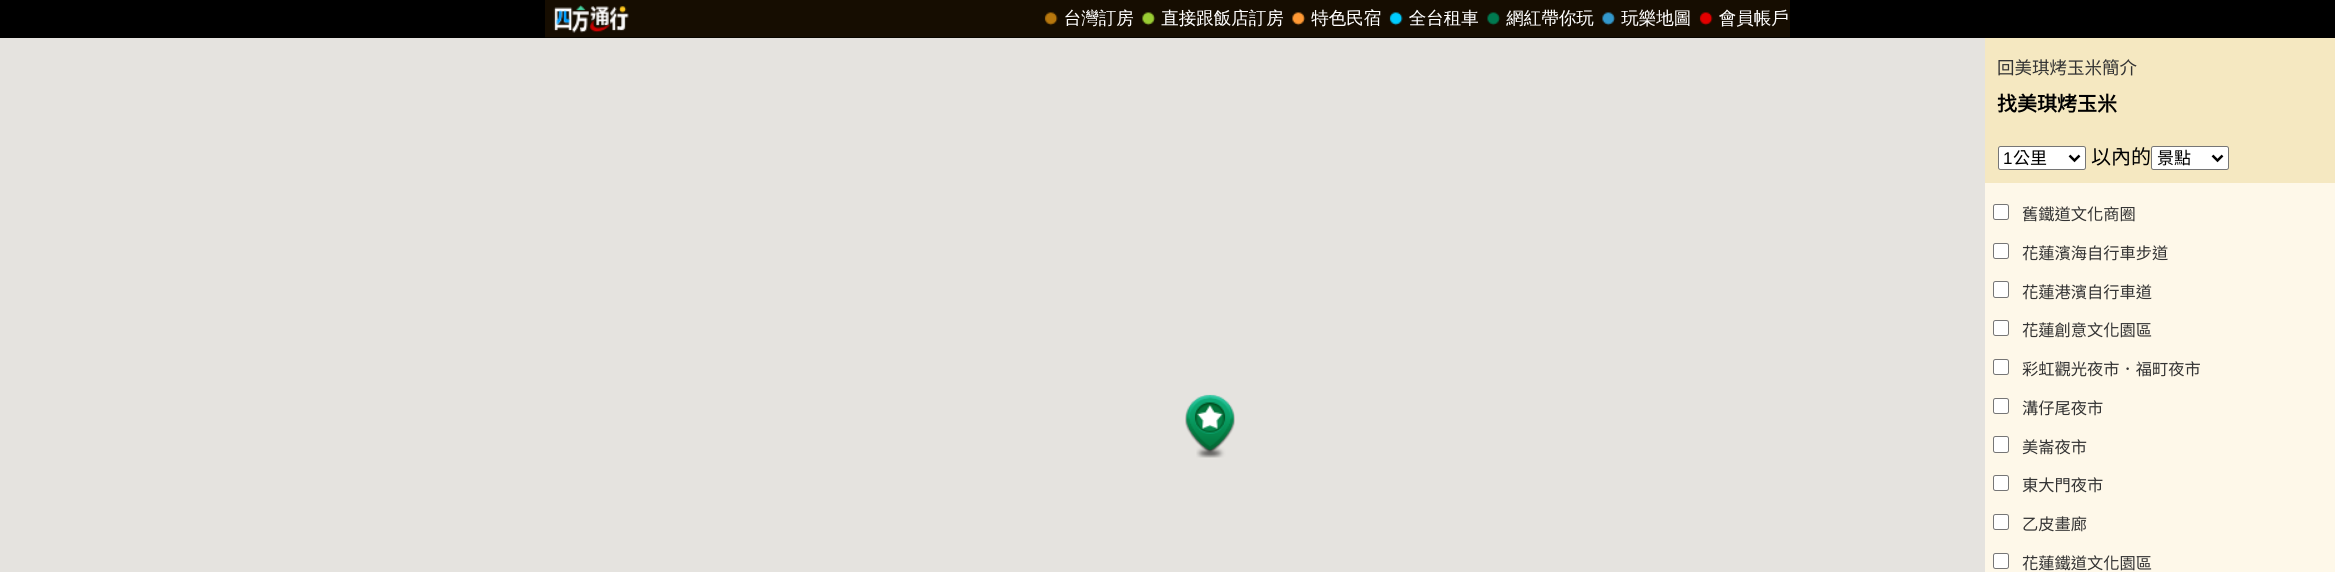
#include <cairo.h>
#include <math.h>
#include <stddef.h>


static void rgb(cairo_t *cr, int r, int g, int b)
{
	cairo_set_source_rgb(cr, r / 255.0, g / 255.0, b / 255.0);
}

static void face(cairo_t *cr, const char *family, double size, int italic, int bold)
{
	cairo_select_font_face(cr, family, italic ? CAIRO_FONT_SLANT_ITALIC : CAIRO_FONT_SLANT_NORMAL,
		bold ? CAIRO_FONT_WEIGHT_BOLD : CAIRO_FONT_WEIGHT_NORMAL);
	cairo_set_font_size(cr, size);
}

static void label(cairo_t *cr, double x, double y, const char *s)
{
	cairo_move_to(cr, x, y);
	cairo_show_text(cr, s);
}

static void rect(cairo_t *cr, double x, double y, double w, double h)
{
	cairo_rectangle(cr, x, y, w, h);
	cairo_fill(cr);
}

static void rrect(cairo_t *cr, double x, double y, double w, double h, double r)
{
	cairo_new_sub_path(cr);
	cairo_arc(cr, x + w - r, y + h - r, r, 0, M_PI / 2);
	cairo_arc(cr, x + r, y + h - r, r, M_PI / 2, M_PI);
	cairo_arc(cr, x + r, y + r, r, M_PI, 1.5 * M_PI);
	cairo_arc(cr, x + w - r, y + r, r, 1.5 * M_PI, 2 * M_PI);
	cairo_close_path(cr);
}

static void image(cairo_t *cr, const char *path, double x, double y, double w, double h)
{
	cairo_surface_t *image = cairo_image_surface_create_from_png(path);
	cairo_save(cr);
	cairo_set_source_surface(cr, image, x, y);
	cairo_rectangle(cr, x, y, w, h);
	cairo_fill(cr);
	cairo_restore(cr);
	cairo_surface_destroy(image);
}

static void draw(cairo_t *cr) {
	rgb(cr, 0, 0, 0);
	cairo_paint(cr);
	image(cr, "image0.png", 545, 0, 1245, 38);
	rgb(cr, 229, 227, 223);
	rect(cr, 0, 38, 1985, 534);
	image(cr, "image1.png", 1185, 394, 50, 64);
	rgb(cr, 254, 248, 233);
	rect(cr, 1985, 183, 350, 389);
	rgb(cr, 245, 232, 193);
	rect(cr, 1985, 38, 350, 145);
	face(cr, "Noto Sans CJK TC", 17.5, 0, 0);
	rgb(cr, 51, 51, 51);
	label(cr, 1997, 74, "回美琪烤玉米簡介");
	face(cr, "Noto Sans CJK TC", 20, 0, 1);
	rgb(cr, 0, 0, 0);
	label(cr, 1997, 111, "找美琪烤玉米");
	rgb(cr, 255, 255, 255);
	rrect(cr, 1998.5, 146.5, 87, 23, 2);
	cairo_fill_preserve(cr);
	rgb(cr, 118, 118, 118);
	cairo_set_line_width(cr, 1);
	cairo_stroke(cr);
	cairo_new_path(cr);
	cairo_move_to(cr, 2069.5, 155.5);
	cairo_line_to(cr, 2074.5, 160.5);
	cairo_line_to(cr, 2079.5, 155.5);
	rgb(cr, 0, 0, 0);
	cairo_set_line_width(cr, 2.5);
	cairo_stroke(cr);
	face(cr, "Liberation Sans", 17, 0, 0);
	label(cr, 2003, 164, "1");
	face(cr, "Noto Sans CJK TC", 17, 0, 0);
	label(cr, 2013, 164, "公里");
	face(cr, "Noto Sans CJK TC", 20, 0, 0);
	label(cr, 2091, 164, "以內的");
	rgb(cr, 255, 255, 255);
	rrect(cr, 2151.5, 146.5, 77, 23, 2);
	cairo_fill_preserve(cr);
	rgb(cr, 118, 118, 118);
	cairo_set_line_width(cr, 1);
	cairo_stroke(cr);
	cairo_new_path(cr);
	cairo_move_to(cr, 2212.5, 155.5);
	cairo_line_to(cr, 2217.5, 160.5);
	cairo_line_to(cr, 2222.5, 155.5);
	rgb(cr, 0, 0, 0);
	cairo_set_line_width(cr, 2.5);
	cairo_stroke(cr);
	face(cr, "Noto Sans CJK TC", 17, 0, 0);
	label(cr, 2157, 164, "景點");
	rgb(cr, 255, 255, 255);
	rrect(cr, 1993.5, 204.5, 15, 15, 2);
	cairo_fill_preserve(cr);
	rgb(cr, 118, 118, 118);
	cairo_set_line_width(cr, 1);
	cairo_stroke(cr);
	face(cr, "Noto Sans CJK TC", 16.25, 0, 0);
	rgb(cr, 51, 51, 51);
	label(cr, 2022, 220, "舊鐵道文化商圈");
	rgb(cr, 255, 255, 255);
	rrect(cr, 1993.5, 243.5, 15, 15, 2);
	cairo_fill_preserve(cr);
	rgb(cr, 118, 118, 118);
	cairo_stroke(cr);
	rgb(cr, 51, 51, 51);
	label(cr, 2022, 259, "花蓮濱海自行車步道");
	rgb(cr, 255, 255, 255);
	rrect(cr, 1993.5, 281.5, 15, 16, 2);
	cairo_fill_preserve(cr);
	rgb(cr, 118, 118, 118);
	cairo_stroke(cr);
	rgb(cr, 51, 51, 51);
	label(cr, 2022, 298, "花蓮港濱自行車道");
	rgb(cr, 255, 255, 255);
	rrect(cr, 1993.5, 320.5, 15, 15, 2);
	cairo_fill_preserve(cr);
	rgb(cr, 118, 118, 118);
	cairo_stroke(cr);
	rgb(cr, 51, 51, 51);
	label(cr, 2022, 336, "花蓮創意文化園區");
	rgb(cr, 255, 255, 255);
	rrect(cr, 1993.5, 359.5, 15, 15, 2);
	cairo_fill_preserve(cr);
	rgb(cr, 118, 118, 118);
	cairo_stroke(cr);
	rgb(cr, 51, 51, 51);
	label(cr, 2022, 375, "彩虹觀光夜市．福町夜市");
	rgb(cr, 255, 255, 255);
	rrect(cr, 1993.5, 398.5, 15, 15, 2);
	cairo_fill_preserve(cr);
	rgb(cr, 118, 118, 118);
	cairo_stroke(cr);
	rgb(cr, 51, 51, 51);
	label(cr, 2022, 414, "溝仔尾夜市");
	rgb(cr, 255, 255, 255);
	rrect(cr, 1993.5, 436.5, 15, 16, 2);
	cairo_fill_preserve(cr);
	rgb(cr, 118, 118, 118);
	cairo_stroke(cr);
	rgb(cr, 51, 51, 51);
	label(cr, 2022, 453, "美崙夜市");
	rgb(cr, 255, 255, 255);
	rrect(cr, 1993.5, 475.5, 15, 15, 2);
	cairo_fill_preserve(cr);
	rgb(cr, 118, 118, 118);
	cairo_stroke(cr);
	rgb(cr, 51, 51, 51);
	label(cr, 2022, 491, "東大門夜市");
	rgb(cr, 255, 255, 255);
	rrect(cr, 1993.5, 514.5, 15, 15, 2);
	cairo_fill_preserve(cr);
	rgb(cr, 118, 118, 118);
	cairo_stroke(cr);
	rgb(cr, 51, 51, 51);
	label(cr, 2022, 530, "乙皮畫廊");
	rgb(cr, 255, 255, 255);
	rrect(cr, 1993.5, 553.5, 15, 15, 2);
	cairo_fill_preserve(cr);
	rgb(cr, 118, 118, 118);
	cairo_stroke(cr);
	rgb(cr, 51, 51, 51);
	label(cr, 2022, 569, "花蓮鐵道文化園區");
}

int main(void) {
	cairo_surface_t *surface = cairo_image_surface_create(CAIRO_FORMAT_RGB24, 2335, 572);
	cairo_t *cr = cairo_create(surface);
	cairo_font_options_t *options = cairo_font_options_create();
	cairo_font_options_set_hint_metrics(options, CAIRO_HINT_METRICS_OFF);
	cairo_font_options_set_hint_style(options, CAIRO_HINT_STYLE_NONE);
	cairo_set_font_options(cr, options);
	cairo_set_miter_limit(cr, 4);
	draw(cr);
	cairo_surface_write_to_png(surface, "render.png");
	cairo_font_options_destroy(options);
	cairo_destroy(cr);
	cairo_surface_destroy(surface);
	return 0;
}
